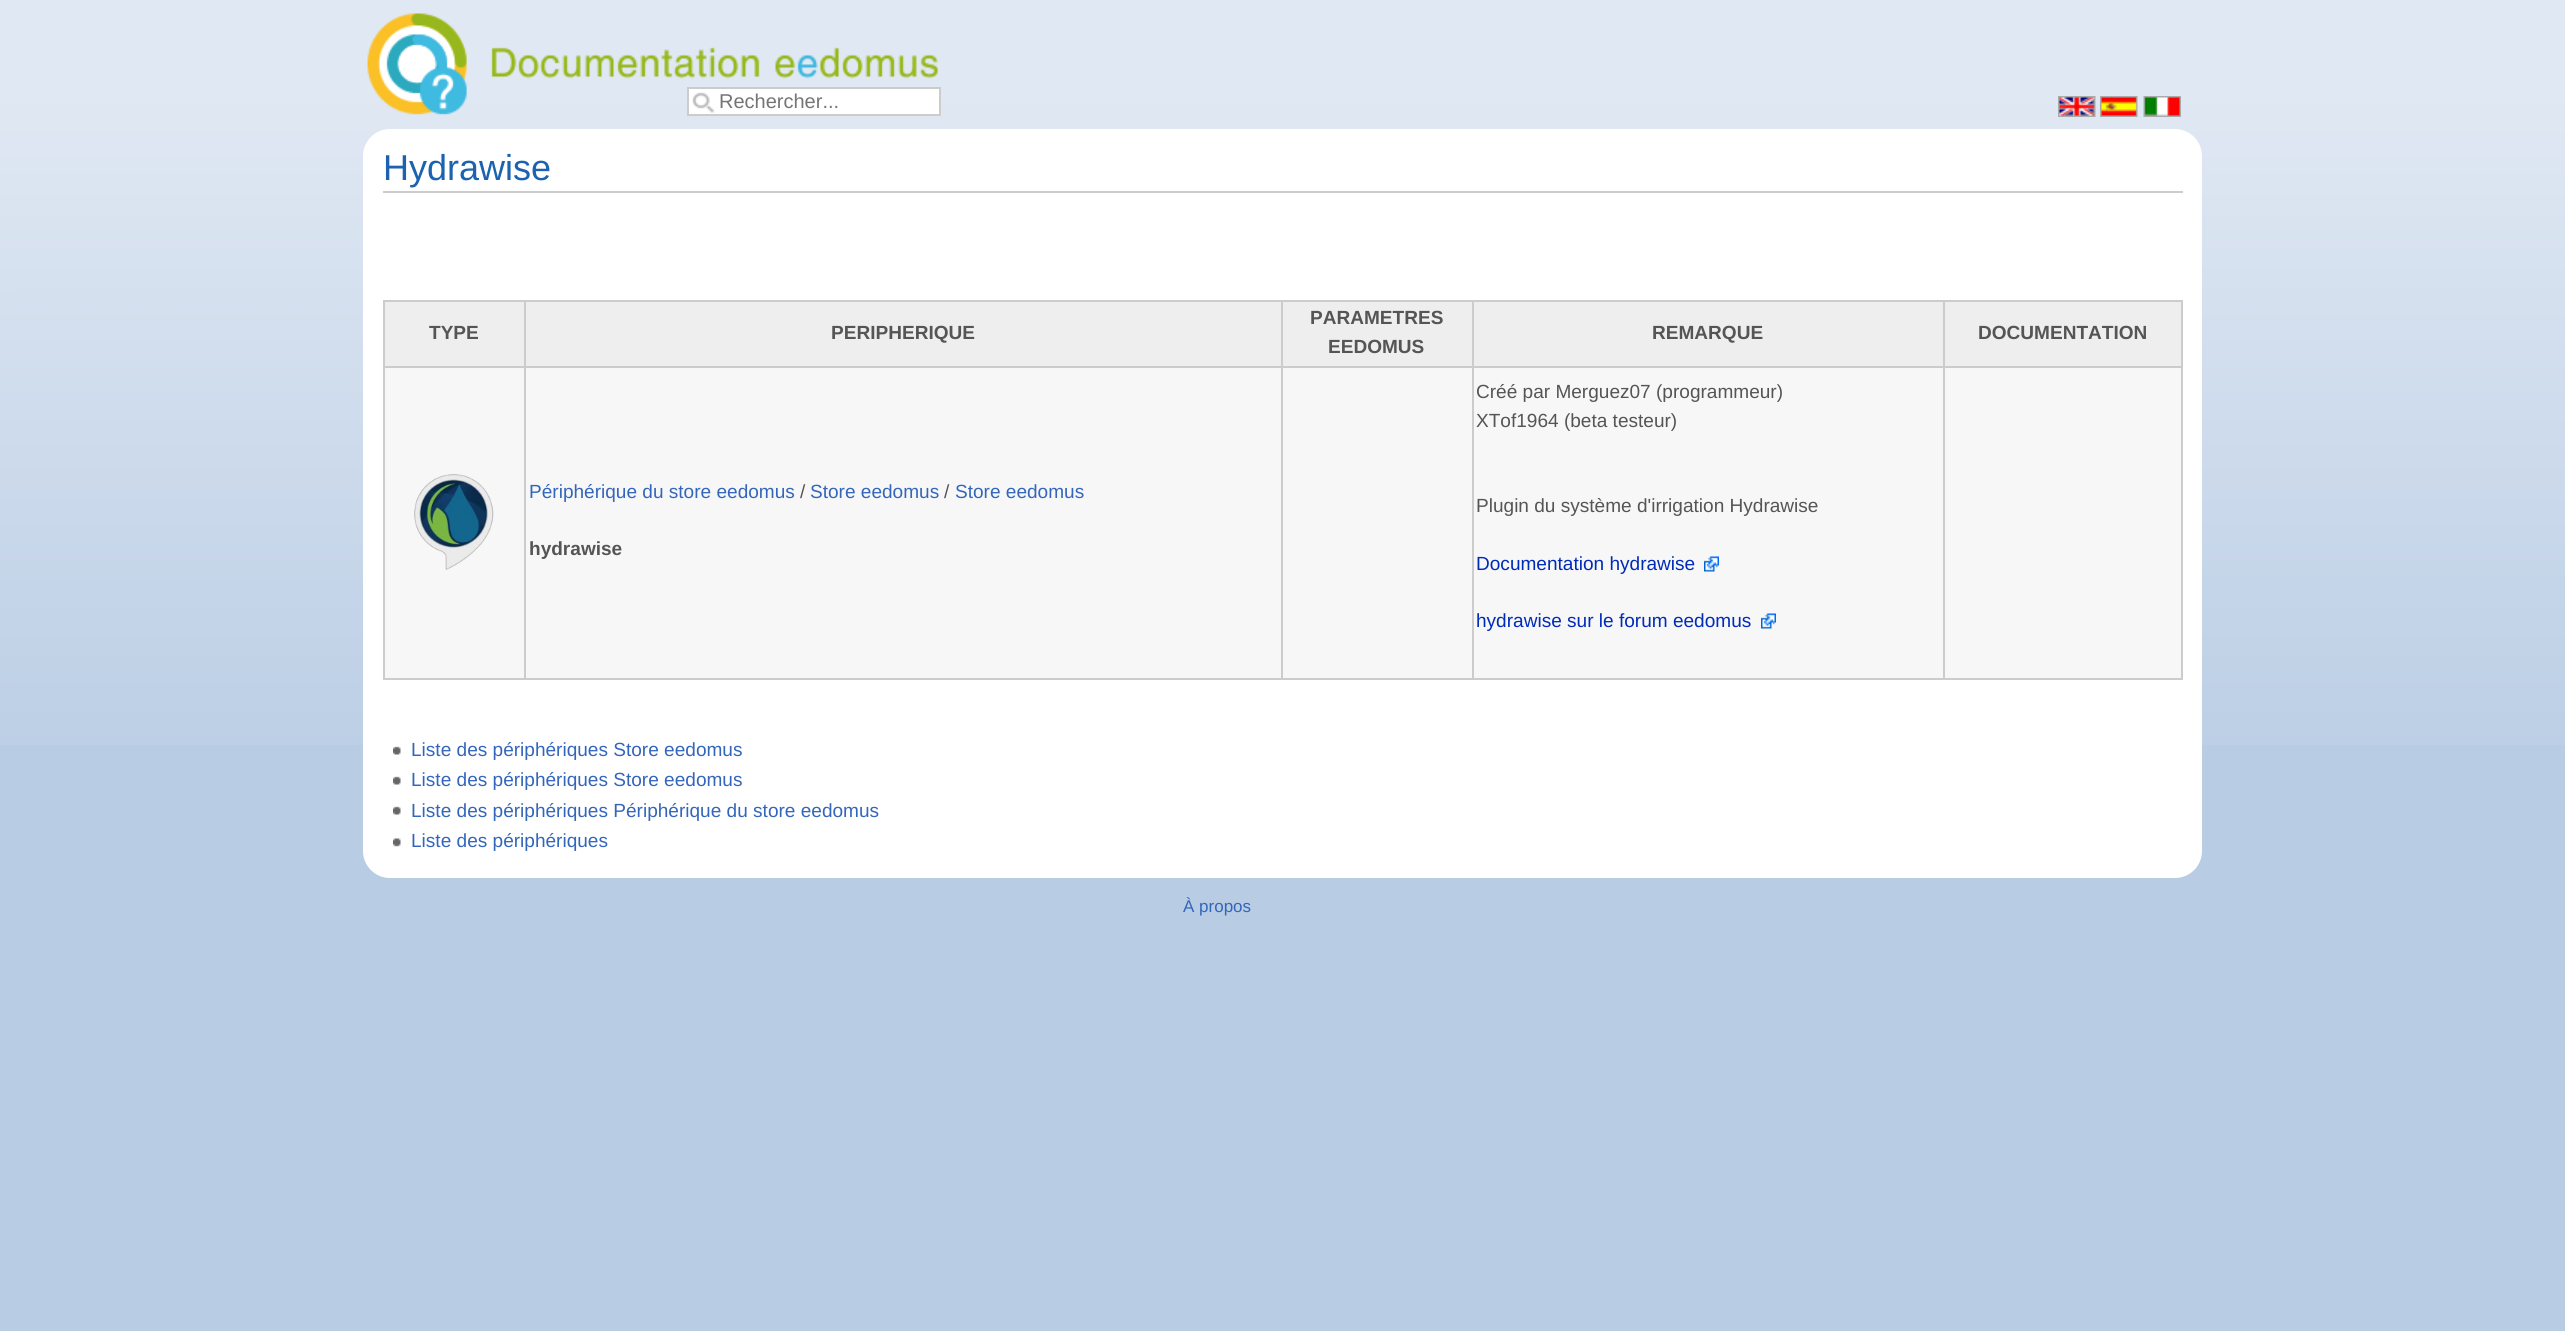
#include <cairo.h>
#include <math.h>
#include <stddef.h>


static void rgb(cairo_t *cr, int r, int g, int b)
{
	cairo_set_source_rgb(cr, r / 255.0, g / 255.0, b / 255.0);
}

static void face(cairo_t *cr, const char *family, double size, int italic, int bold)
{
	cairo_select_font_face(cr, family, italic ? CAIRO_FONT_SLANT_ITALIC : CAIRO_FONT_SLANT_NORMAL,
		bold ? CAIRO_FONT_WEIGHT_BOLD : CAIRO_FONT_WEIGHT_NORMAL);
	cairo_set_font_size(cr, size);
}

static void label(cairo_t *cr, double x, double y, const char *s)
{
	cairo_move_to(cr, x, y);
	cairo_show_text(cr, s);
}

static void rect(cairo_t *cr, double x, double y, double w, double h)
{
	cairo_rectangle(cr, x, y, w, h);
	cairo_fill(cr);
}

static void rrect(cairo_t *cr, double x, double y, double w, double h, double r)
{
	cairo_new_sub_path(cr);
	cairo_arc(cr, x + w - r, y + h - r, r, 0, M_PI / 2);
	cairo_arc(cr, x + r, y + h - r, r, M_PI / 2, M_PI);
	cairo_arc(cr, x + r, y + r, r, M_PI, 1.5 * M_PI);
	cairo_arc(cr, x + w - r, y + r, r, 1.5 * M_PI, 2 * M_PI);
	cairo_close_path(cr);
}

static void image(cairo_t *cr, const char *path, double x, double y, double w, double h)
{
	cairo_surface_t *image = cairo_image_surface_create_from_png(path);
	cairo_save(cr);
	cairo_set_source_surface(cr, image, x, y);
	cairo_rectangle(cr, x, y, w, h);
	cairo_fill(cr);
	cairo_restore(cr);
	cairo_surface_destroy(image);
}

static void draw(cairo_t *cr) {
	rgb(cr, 184, 204, 228);
	cairo_paint(cr);
	image(cr, "image0.png", 0, 0, 2565, 745);
	image(cr, "image1.png", 367, 13, 572, 102);
	rgb(cr, 255, 255, 255);
	rect(cr, 689, 89, 250, 25);
	image(cr, "image2.png", 692, 92, 23, 21);
	cairo_rectangle(cr, 688, 88, 252, 27);
	rgb(cr, 204, 204, 204);
	cairo_stroke(cr);
	face(cr, "Liberation Sans", 20, 0, 0);
	rgb(cr, 117, 117, 117);
	label(cr, 719, 108, "Rechercher...");
	image(cr, "image3.png", 2058, 96, 38, 21);
	image(cr, "image4.png", 2100, 96, 38, 21);
	image(cr, "image5.png", 2143, 96, 38, 21);
	rgb(cr, 255, 255, 255);
	rrect(cr, 363, 129, 1839, 749, 27);
	cairo_fill(cr);
	rgb(cr, 204, 204, 204);
	rect(cr, 383, 191, 1800, 2);
	face(cr, "Liberation Sans", 36, 0, 0);
	rgb(cr, 28, 98, 175);
	label(cr, 383, 180, "Hydrawise");
	rgb(cr, 247, 247, 247);
	rect(cr, 385, 368, 1796, 310);
	rgb(cr, 204, 204, 204);
	rect(cr, 383, 300, 1800, 2);
	rect(cr, 2181, 300, 2, 380);
	rect(cr, 383, 678, 1800, 2);
	rect(cr, 383, 300, 2, 380);
	rgb(cr, 238, 238, 238);
	rect(cr, 385, 302, 139, 64);
	face(cr, "Liberation Sans", 19.05, 0, 1);
	rgb(cr, 85, 85, 85);
	label(cr, 429, 339, "TYPE");
	rgb(cr, 238, 238, 238);
	rect(cr, 526, 302, 755, 64);
	rgb(cr, 204, 204, 204);
	rect(cr, 1943, 366, 240, 2);
	rect(cr, 1943, 366, 2, 314);
	rect(cr, 1472, 366, 472, 2);
	rect(cr, 1472, 366, 2, 314);
	rect(cr, 1281, 366, 192, 2);
	rect(cr, 1281, 366, 2, 314);
	rect(cr, 524, 366, 759, 2);
	rect(cr, 524, 366, 2, 314);
	rect(cr, 383, 366, 142, 2);
	rect(cr, 524, 300, 2, 68);
	rgb(cr, 85, 85, 85);
	label(cr, 831, 339, "PERIPHERIQUE");
	rgb(cr, 238, 238, 238);
	rect(cr, 1283, 302, 189, 64);
	rgb(cr, 204, 204, 204);
	rect(cr, 1281, 300, 2, 68);
	rgb(cr, 85, 85, 85);
	label(cr, 1310, 324, "PARAMETRES");
	label(cr, 1328, 353, "EEDOMUS");
	rgb(cr, 238, 238, 238);
	rect(cr, 1474, 302, 469, 64);
	rgb(cr, 204, 204, 204);
	rect(cr, 1472, 300, 2, 68);
	rgb(cr, 85, 85, 85);
	label(cr, 1652, 339, "REMARQUE");
	rgb(cr, 238, 238, 238);
	rect(cr, 1945, 302, 236, 64);
	rgb(cr, 204, 204, 204);
	rect(cr, 1943, 300, 2, 68);
	rgb(cr, 85, 85, 85);
	label(cr, 1978, 339, "DOCUMENTATION");
	image(cr, "image6.png", 414, 474, 80, 96);
	face(cr, "Liberation Sans", 19.05, 0, 0);
	rgb(cr, 51, 102, 187);
	label(cr, 529, 498, "Périphérique du store eedomus");
	rgb(cr, 85, 85, 85);
	label(cr, 800, 498, "/");
	rgb(cr, 51, 102, 187);
	label(cr, 810, 498, "Store eedomus");
	rgb(cr, 85, 85, 85);
	label(cr, 944, 498, "/");
	rgb(cr, 51, 102, 187);
	label(cr, 955, 498, "Store eedomus");
	face(cr, "Liberation Sans", 19.05, 0, 1);
	rgb(cr, 85, 85, 85);
	label(cr, 529, 555, "hydrawise");
	face(cr, "Liberation Sans", 19.05, 0, 0);
	label(cr, 1476, 398, "Créé par Merguez07 (programmeur)");
	label(cr, 1476, 427, "XTof1964 (beta testeur)");
	label(cr, 1476, 512, "Plugin du système d'irrigation Hydrawise");
	rgb(cr, 0, 43, 184);
	label(cr, 1476, 570, "Documentation hydrawise");
	image(cr, "image7.png", 1704, 556, 15, 16);
	label(cr, 1476, 627, "hydrawise sur le forum eedomus");
	image(cr, "image7.png", 1761, 613, 15, 16);
	image(cr, "image8.png", 393, 746, 8, 9);
	rgb(cr, 51, 102, 187);
	label(cr, 411, 756, "Liste des périphériques Store eedomus");
	image(cr, "image8.png", 393, 776, 8, 9);
	label(cr, 411, 786, "Liste des périphériques Store eedomus");
	image(cr, "image8.png", 393, 806, 8, 9);
	label(cr, 411, 817, "Liste des périphériques Périphérique du store eedomus");
	image(cr, "image9.png", 393, 838, 8, 9);
	label(cr, 411, 847, "Liste des périphériques");
	face(cr, "Liberation Sans", 17, 0, 0);
	label(cr, 1183, 912, "À propos");
}

int main(void) {
	cairo_surface_t *surface = cairo_image_surface_create(CAIRO_FORMAT_RGB24, 2565, 1331);
	cairo_t *cr = cairo_create(surface);
	cairo_font_options_t *options = cairo_font_options_create();
	cairo_font_options_set_hint_metrics(options, CAIRO_HINT_METRICS_OFF);
	cairo_font_options_set_hint_style(options, CAIRO_HINT_STYLE_NONE);
	cairo_set_font_options(cr, options);
	cairo_set_miter_limit(cr, 4);
	draw(cr);
	cairo_surface_write_to_png(surface, "render.png");
	cairo_font_options_destroy(options);
	cairo_destroy(cr);
	cairo_surface_destroy(surface);
	return 0;
}
